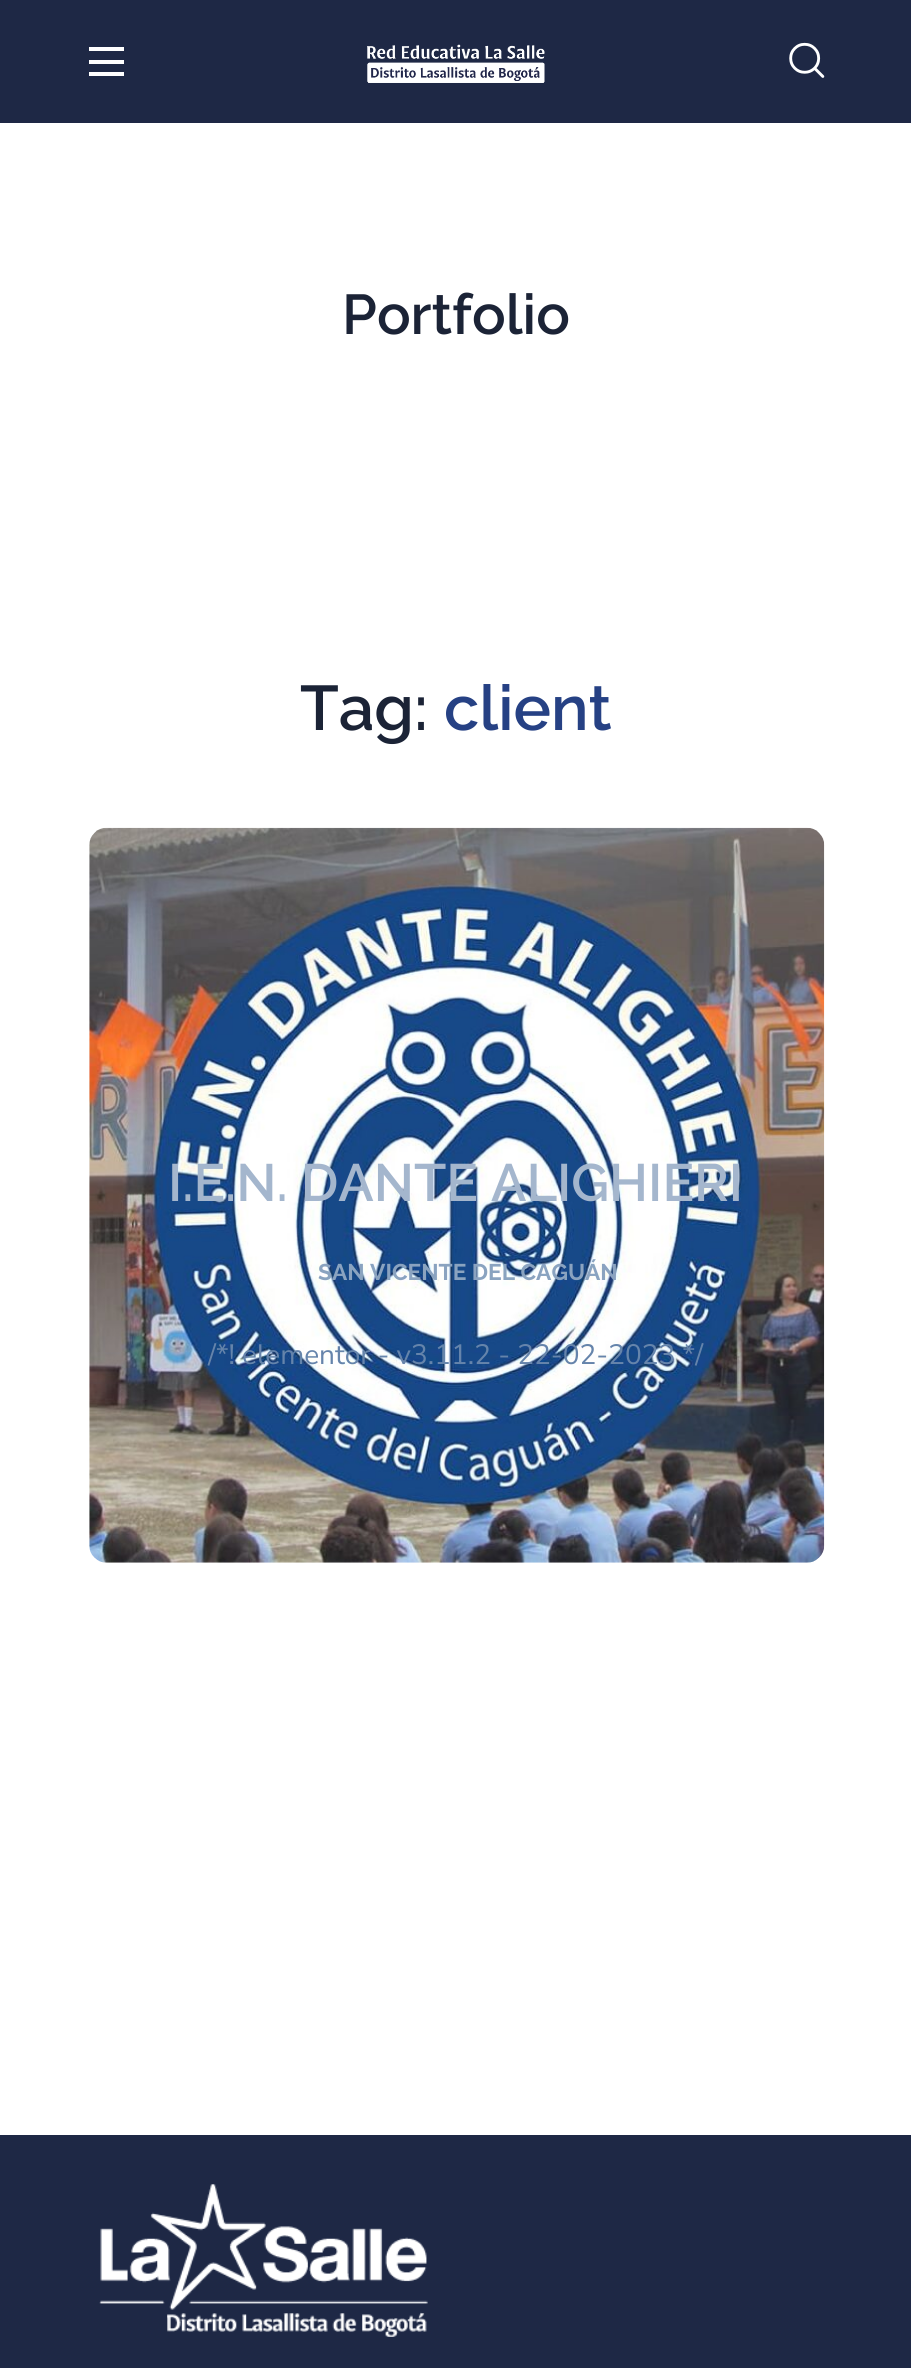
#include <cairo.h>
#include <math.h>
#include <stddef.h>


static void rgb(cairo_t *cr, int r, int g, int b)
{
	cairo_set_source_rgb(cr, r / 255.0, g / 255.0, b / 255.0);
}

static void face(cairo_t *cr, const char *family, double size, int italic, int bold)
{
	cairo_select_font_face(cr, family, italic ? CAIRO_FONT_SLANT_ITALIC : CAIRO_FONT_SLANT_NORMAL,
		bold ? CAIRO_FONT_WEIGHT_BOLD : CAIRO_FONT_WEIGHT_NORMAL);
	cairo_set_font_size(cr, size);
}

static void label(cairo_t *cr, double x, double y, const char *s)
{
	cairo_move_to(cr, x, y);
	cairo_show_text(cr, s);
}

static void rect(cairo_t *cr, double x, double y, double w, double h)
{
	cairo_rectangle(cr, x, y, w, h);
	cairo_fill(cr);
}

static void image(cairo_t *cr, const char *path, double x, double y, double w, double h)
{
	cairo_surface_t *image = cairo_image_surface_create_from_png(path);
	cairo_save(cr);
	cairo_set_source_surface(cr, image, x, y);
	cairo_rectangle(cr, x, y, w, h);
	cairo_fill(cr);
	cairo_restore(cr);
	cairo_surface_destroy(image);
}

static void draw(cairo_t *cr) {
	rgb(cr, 255, 255, 255);
	cairo_paint(cr);
	rgb(cr, 30, 40, 69);
	rect(cr, 0, 0, 911, 123);
	rgb(cr, 255, 255, 255);
	rect(cr, 89, 47, 35, 4);
	rect(cr, 89, 60, 35, 4);
	rect(cr, 89, 72, 35, 4);
	image(cr, "image0.png", 367, 44, 178, 39);
	image(cr, "image1.png", 789, 42, 36, 36);
	face(cr, "Raleway SemiBold", 56, 0, 0);
	rgb(cr, 27, 35, 54);
	label(cr, 342, 334, "Portfolio");
	face(cr, "Raleway SemiBold", 63, 0, 0);
	label(cr, 300, 730, "Tag:");
	rgb(cr, 38, 65, 132);
	label(cr, 444, 730, "client");
	image(cr, "image2.png", 89, 827, 736, 736);
	face(cr, "Raleway SemiBold", 52.5, 0, 0);
	rgb(cr, 164, 182, 205);
	label(cr, 168, 1201, "I.E.N. DANTE ALIGHIERI");
	face(cr, "Raleway", 22.75, 0, 1);
	rgb(cr, 138, 163, 192);
	label(cr, 318, 1280, "SAN VICENTE DEL CAGUÁN");
	face(cr, "Nunito Sans", 28, 0, 0);
	rgb(cr, 101, 132, 171);
	label(cr, 208, 1364, "/*! elementor - v3.11.2 - 22-02-2023 */");
	rgb(cr, 30, 40, 69);
	rect(cr, 0, 2135, 911, 233);
	image(cr, "image3.png", 99, 2184, 329, 153);
}

int main(void) {
	cairo_surface_t *surface = cairo_image_surface_create(CAIRO_FORMAT_RGB24, 911, 2368);
	cairo_t *cr = cairo_create(surface);
	cairo_font_options_t *options = cairo_font_options_create();
	cairo_font_options_set_hint_metrics(options, CAIRO_HINT_METRICS_OFF);
	cairo_font_options_set_hint_style(options, CAIRO_HINT_STYLE_NONE);
	cairo_set_font_options(cr, options);
	cairo_set_miter_limit(cr, 4);
	draw(cr);
	cairo_surface_write_to_png(surface, "render.png");
	cairo_font_options_destroy(options);
	cairo_destroy(cr);
	cairo_surface_destroy(surface);
	return 0;
}
